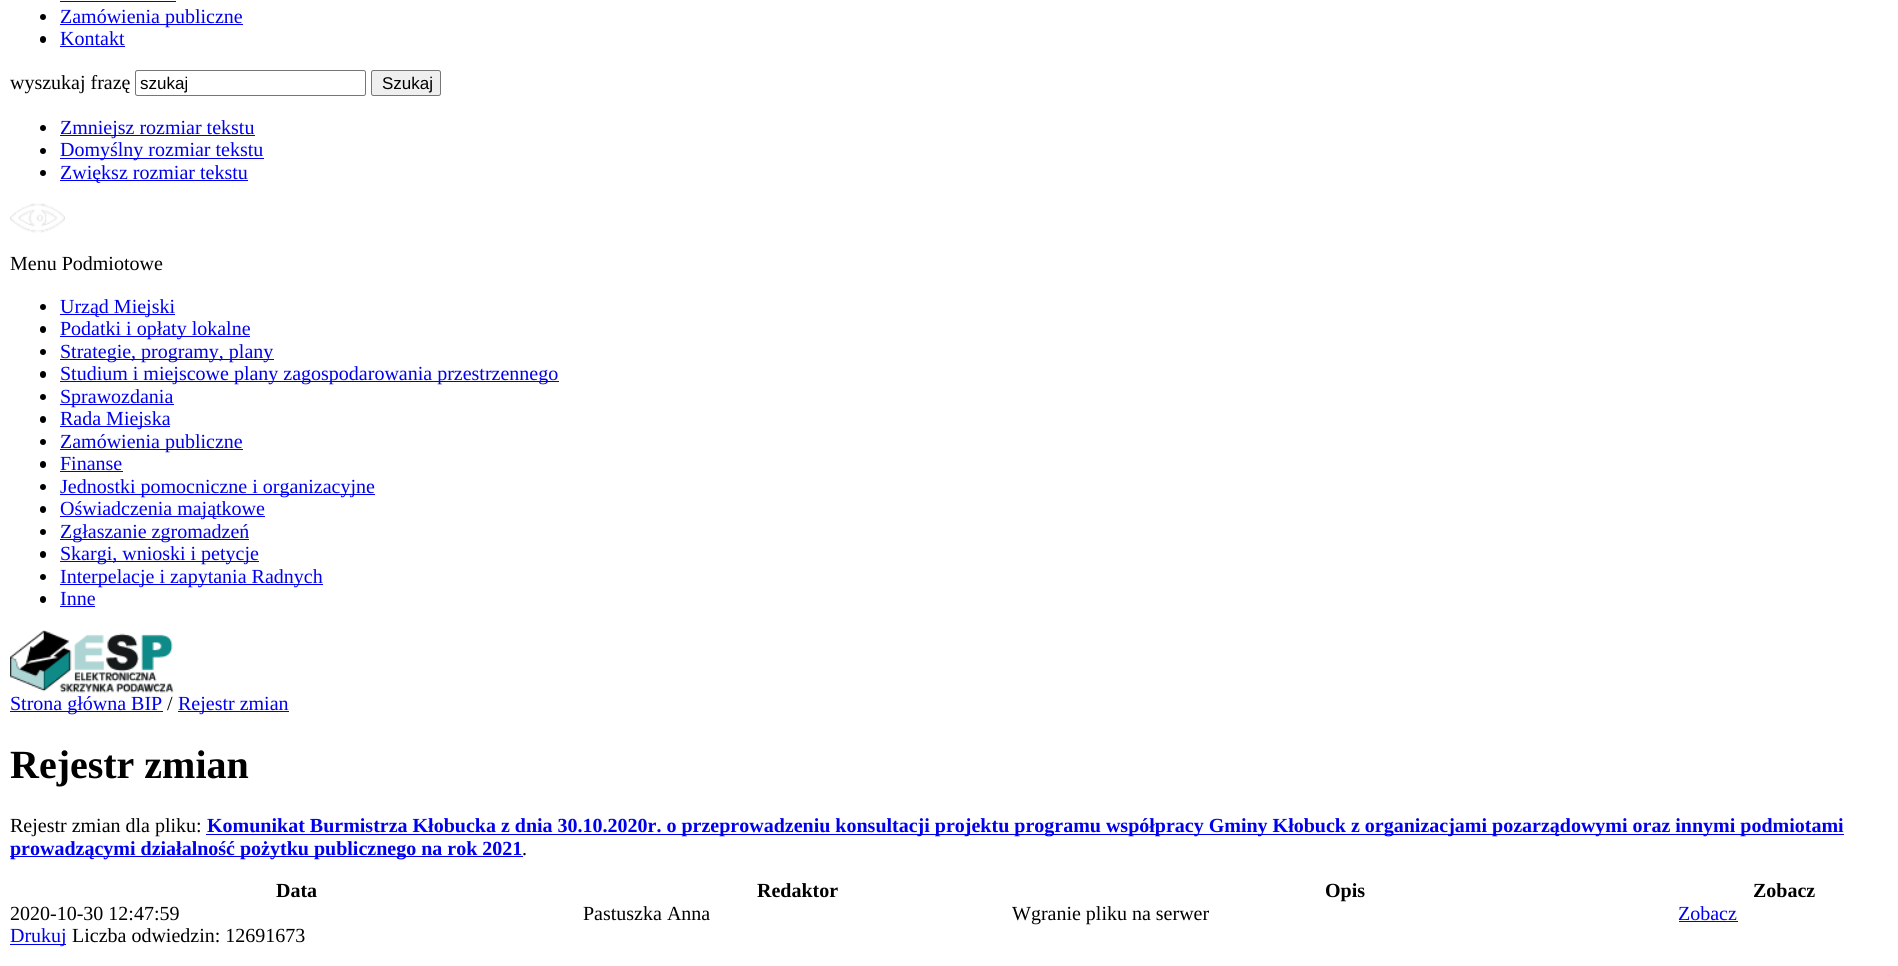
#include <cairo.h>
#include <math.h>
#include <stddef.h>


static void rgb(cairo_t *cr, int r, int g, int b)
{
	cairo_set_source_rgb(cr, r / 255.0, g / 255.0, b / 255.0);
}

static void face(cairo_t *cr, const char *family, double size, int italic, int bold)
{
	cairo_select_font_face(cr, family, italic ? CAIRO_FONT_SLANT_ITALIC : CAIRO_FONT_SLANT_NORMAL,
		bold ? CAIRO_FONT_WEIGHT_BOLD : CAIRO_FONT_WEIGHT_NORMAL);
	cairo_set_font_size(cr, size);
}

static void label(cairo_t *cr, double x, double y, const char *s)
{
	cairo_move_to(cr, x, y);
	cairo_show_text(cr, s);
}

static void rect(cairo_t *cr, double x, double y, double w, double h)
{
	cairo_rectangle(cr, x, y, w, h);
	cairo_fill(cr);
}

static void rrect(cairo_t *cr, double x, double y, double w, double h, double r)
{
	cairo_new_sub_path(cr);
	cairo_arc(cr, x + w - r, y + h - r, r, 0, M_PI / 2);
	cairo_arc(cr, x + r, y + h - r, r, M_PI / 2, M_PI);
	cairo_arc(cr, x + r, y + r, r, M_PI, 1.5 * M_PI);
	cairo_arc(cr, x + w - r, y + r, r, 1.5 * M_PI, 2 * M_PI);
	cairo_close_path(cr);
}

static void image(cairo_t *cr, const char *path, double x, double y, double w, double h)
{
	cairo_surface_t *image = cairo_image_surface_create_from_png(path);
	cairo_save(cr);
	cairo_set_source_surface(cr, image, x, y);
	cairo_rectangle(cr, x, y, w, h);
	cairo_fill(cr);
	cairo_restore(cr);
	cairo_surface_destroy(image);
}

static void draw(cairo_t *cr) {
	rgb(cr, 255, 255, 255);
	cairo_paint(cr);
	rgb(cr, 0, 0, 238);
	rect(cr, 60, 1, 116, 1);
	rgb(cr, 0, 0, 0);
	cairo_arc(cr, 43, 17, 3, 0, 2 * M_PI);
	cairo_fill(cr);
	rgb(cr, 0, 0, 238);
	rect(cr, 60, 24, 183, 1);
	face(cr, "Liberation Serif", 20, 0, 0);
	label(cr, 60, 23, "Zamówienia publiczne");
	rgb(cr, 0, 0, 0);
	rrect(cr, 40, 36, 6, 7, 3);
	cairo_fill(cr);
	rgb(cr, 0, 0, 238);
	label(cr, 60, 45, "Kontakt");
	rect(cr, 60, 46, 65, 1);
	rgb(cr, 0, 0, 0);
	label(cr, 10, 89, "wyszukaj frazę");
	rrect(cr, 135.5, 70.5, 230, 25, 2);
	rgb(cr, 118, 118, 118);
	cairo_set_line_width(cr, 1);
	cairo_stroke(cr);
	face(cr, "Liberation Sans", 17, 0, 0);
	rgb(cr, 0, 0, 0);
	label(cr, 140, 89, "szukaj");
	rgb(cr, 239, 239, 239);
	rrect(cr, 371.5, 70.5, 69, 25, 2);
	cairo_fill_preserve(cr);
	rgb(cr, 118, 118, 118);
	cairo_stroke(cr);
	rgb(cr, 0, 0, 0);
	label(cr, 382, 89, "Szukaj");
	cairo_new_path(cr);
	cairo_arc(cr, 43, 128, 3, 0, 2 * M_PI);
	cairo_fill(cr);
	rgb(cr, 0, 0, 238);
	rect(cr, 60, 135, 195, 1);
	face(cr, "Liberation Serif", 20, 0, 0);
	label(cr, 60, 134, "Zmniejsz rozmiar tekstu");
	rgb(cr, 0, 0, 0);
	cairo_new_path(cr);
	cairo_arc(cr, 43, 151, 3, 0, 2 * M_PI);
	cairo_fill(cr);
	rgb(cr, 0, 0, 238);
	rect(cr, 60, 158, 204, 1);
	label(cr, 60, 156, "Domyślny rozmiar tekstu");
	rgb(cr, 0, 0, 0);
	cairo_new_path(cr);
	cairo_arc(cr, 43, 173, 3, 0, 2 * M_PI);
	cairo_fill(cr);
	rgb(cr, 0, 0, 238);
	rect(cr, 60, 180, 188, 1);
	label(cr, 60, 179, "Zwiększ rozmiar tekstu");
	image(cr, "image0.png", 10, 203, 55, 30);
	rgb(cr, 0, 0, 0);
	label(cr, 10, 270, "Menu Podmiotowe");
	cairo_new_path(cr);
	cairo_arc(cr, 43, 307, 3, 0, 2 * M_PI);
	cairo_fill(cr);
	rgb(cr, 0, 0, 238);
	rect(cr, 60, 314, 115, 1);
	label(cr, 60, 313, "Urząd Miejski");
	rgb(cr, 0, 0, 0);
	rrect(cr, 40, 326, 6, 7, 3);
	cairo_fill(cr);
	rgb(cr, 0, 0, 238);
	rect(cr, 60, 336, 190, 1);
	label(cr, 60, 335, "Podatki i opłaty lokalne");
	rgb(cr, 0, 0, 0);
	cairo_new_path(cr);
	cairo_arc(cr, 43, 352, 3, 0, 2 * M_PI);
	cairo_fill(cr);
	rgb(cr, 0, 0, 238);
	rect(cr, 60, 359, 214, 1);
	label(cr, 60, 358, "Strategie, programy, plany");
	rgb(cr, 0, 0, 0);
	rrect(cr, 40, 371, 6, 7, 3);
	cairo_fill(cr);
	rgb(cr, 0, 0, 238);
	rect(cr, 60, 381, 499, 1);
	label(cr, 60, 380, "Studium i miejscowe plany zagospodarowania przestrzennego");
	rgb(cr, 0, 0, 0);
	cairo_new_path(cr);
	cairo_arc(cr, 43, 397, 3, 0, 2 * M_PI);
	cairo_fill(cr);
	rgb(cr, 0, 0, 238);
	rect(cr, 60, 404, 114, 1);
	label(cr, 60, 403, "Sprawozdania");
	rgb(cr, 0, 0, 0);
	rrect(cr, 40, 416, 6, 7, 3);
	cairo_fill(cr);
	rgb(cr, 0, 0, 238);
	rect(cr, 60, 426, 110, 1);
	label(cr, 60, 425, "Rada Miejska");
	rgb(cr, 0, 0, 0);
	cairo_new_path(cr);
	cairo_arc(cr, 43, 442, 3, 0, 2 * M_PI);
	cairo_fill(cr);
	rgb(cr, 0, 0, 238);
	rect(cr, 60, 449, 183, 1);
	label(cr, 60, 448, "Zamówienia publiczne");
	rgb(cr, 0, 0, 0);
	rrect(cr, 40, 461, 6, 7, 3);
	cairo_fill(cr);
	rgb(cr, 0, 0, 238);
	label(cr, 60, 470, "Finanse");
	rect(cr, 60, 471, 63, 1);
	rgb(cr, 0, 0, 0);
	cairo_new_path(cr);
	cairo_arc(cr, 43, 487, 3, 0, 2 * M_PI);
	cairo_fill(cr);
	rgb(cr, 0, 0, 238);
	rect(cr, 60, 494, 315, 1);
	label(cr, 60, 493, "Jednostki pomocniczne i organizacyjne");
	rgb(cr, 0, 0, 0);
	rrect(cr, 40, 506, 6, 7, 3);
	cairo_fill(cr);
	rgb(cr, 0, 0, 238);
	rect(cr, 60, 516, 205, 1);
	label(cr, 60, 515, "Oświadczenia majątkowe");
	rgb(cr, 0, 0, 0);
	cairo_new_path(cr);
	cairo_arc(cr, 43, 532, 3, 0, 2 * M_PI);
	cairo_fill(cr);
	rgb(cr, 0, 0, 238);
	rect(cr, 60, 539, 189, 1);
	label(cr, 60, 538, "Zgłaszanie zgromadzeń");
	rgb(cr, 0, 0, 0);
	rrect(cr, 40, 551, 6, 7, 3);
	cairo_fill(cr);
	rgb(cr, 0, 0, 238);
	rect(cr, 60, 561, 199, 1);
	label(cr, 60, 560, "Skargi, wnioski i petycje");
	rgb(cr, 0, 0, 0);
	cairo_new_path(cr);
	cairo_arc(cr, 43, 577, 3, 0, 2 * M_PI);
	cairo_fill(cr);
	rgb(cr, 0, 0, 238);
	rect(cr, 60, 584, 263, 1);
	label(cr, 60, 583, "Interpelacje i zapytania Radnych");
	rgb(cr, 0, 0, 0);
	rrect(cr, 40, 596, 6, 7, 3);
	cairo_fill(cr);
	rgb(cr, 0, 0, 238);
	label(cr, 60, 605, "Inne");
	rect(cr, 60, 606, 35, 1);
	image(cr, "image1.png", 10, 630, 164, 63);
	rect(cr, 10, 711, 153, 1);
	label(cr, 10, 710, "Strona główna BIP");
	rgb(cr, 0, 0, 0);
	label(cr, 167, 710, "/");
	rgb(cr, 0, 0, 238);
	rect(cr, 178, 711, 111, 1);
	label(cr, 178, 710, "Rejestr zmian");
	face(cr, "Liberation Serif", 40, 0, 1);
	rgb(cr, 0, 0, 0);
	label(cr, 10, 778, "Rejestr zmian");
	face(cr, "Liberation Serif", 20, 0, 0);
	label(cr, 10, 832, "Rejestr zmian dla pliku:");
	rgb(cr, 0, 0, 238);
	rect(cr, 206, 834, 1638, 1);
	face(cr, "Liberation Serif", 20, 0, 1);
	label(cr, 207, 832, "Komunikat Burmistrza Kłobucka z dnia 30.10.2020r. o przeprowadzeniu konsultacji projektu programu współpracy Gminy Kłobuck z organizacjami pozarządowymi oraz innymi podmiotami");
	rect(cr, 10, 856, 513, 1);
	label(cr, 10, 855, "prowadzącymi działalność pożytku publicznego na rok 2021");
	face(cr, "Liberation Serif", 20, 0, 0);
	rgb(cr, 0, 0, 0);
	label(cr, 522, 855, ".");
	face(cr, "Liberation Serif", 20, 0, 1);
	label(cr, 276, 897, "Data");
	label(cr, 757, 897, "Redaktor");
	label(cr, 1325, 897, "Opis");
	label(cr, 1753, 897, "Zobacz");
	face(cr, "Liberation Serif", 20, 0, 0);
	label(cr, 10, 920, "2020-10-30 12:47:59");
	label(cr, 583, 920, "Pastuszka Anna");
	label(cr, 1012, 920, "Wgranie pliku na serwer");
	rgb(cr, 0, 0, 238);
	label(cr, 1678, 920, "Zobacz");
	rect(cr, 1679, 921, 59, 1);
	rect(cr, 10, 944, 56, 1);
	label(cr, 10, 942, "Drukuj");
	rgb(cr, 0, 0, 0);
	label(cr, 72, 942, "Liczba odwiedzin: 12691673");
}

int main(void) {
	cairo_surface_t *surface = cairo_image_surface_create(CAIRO_FORMAT_RGB24, 1898, 966);
	cairo_t *cr = cairo_create(surface);
	cairo_font_options_t *options = cairo_font_options_create();
	cairo_font_options_set_hint_metrics(options, CAIRO_HINT_METRICS_OFF);
	cairo_font_options_set_hint_style(options, CAIRO_HINT_STYLE_NONE);
	cairo_set_font_options(cr, options);
	cairo_set_miter_limit(cr, 4);
	draw(cr);
	cairo_surface_write_to_png(surface, "render.png");
	cairo_font_options_destroy(options);
	cairo_destroy(cr);
	cairo_surface_destroy(surface);
	return 0;
}
